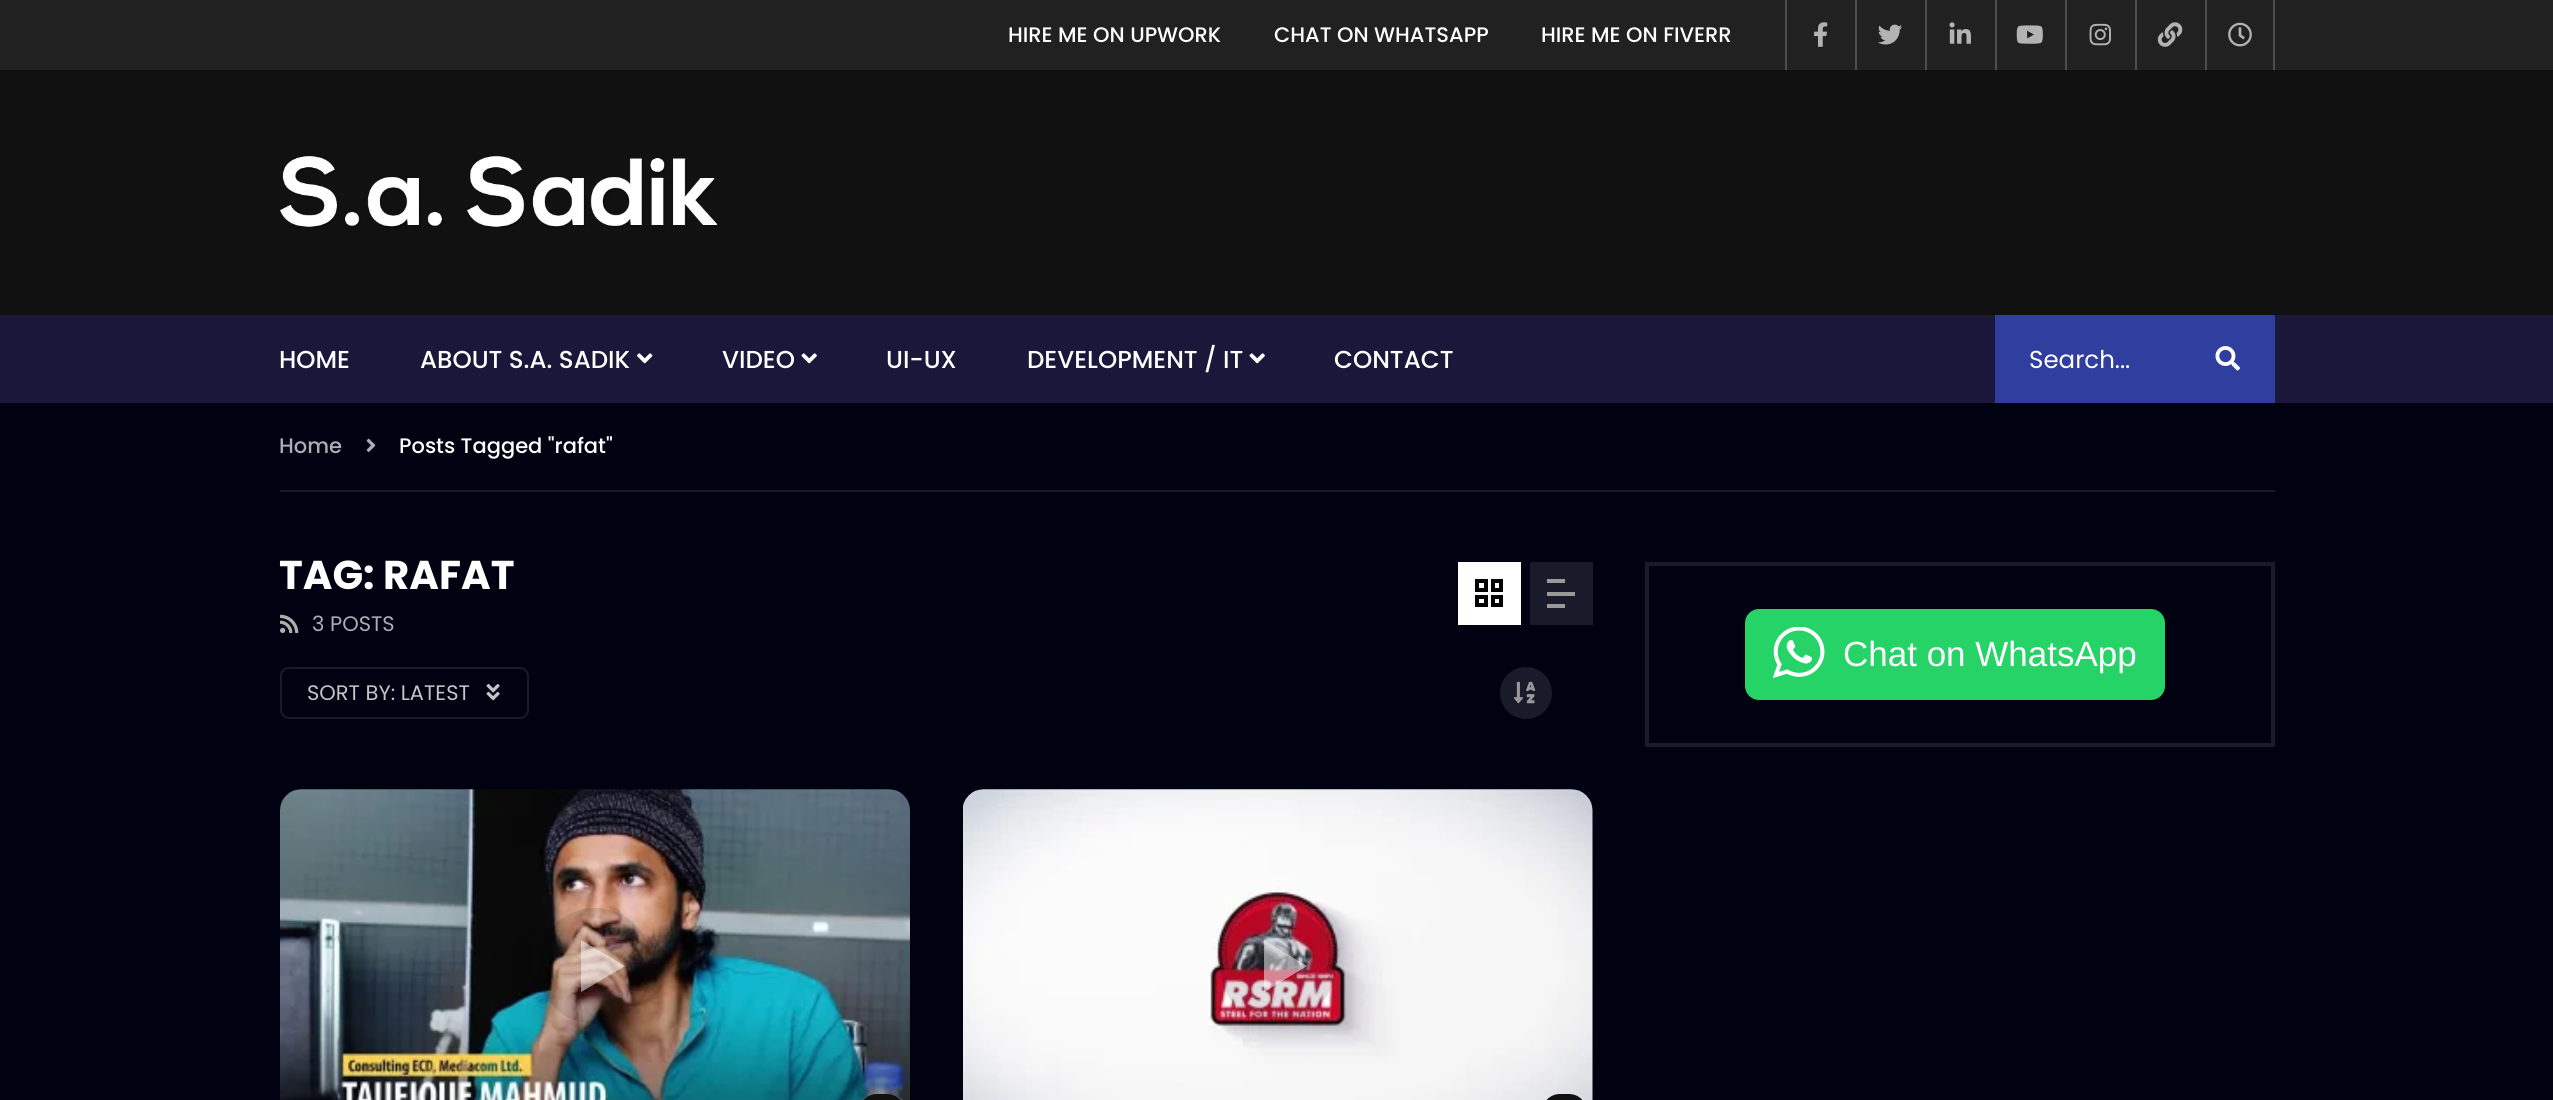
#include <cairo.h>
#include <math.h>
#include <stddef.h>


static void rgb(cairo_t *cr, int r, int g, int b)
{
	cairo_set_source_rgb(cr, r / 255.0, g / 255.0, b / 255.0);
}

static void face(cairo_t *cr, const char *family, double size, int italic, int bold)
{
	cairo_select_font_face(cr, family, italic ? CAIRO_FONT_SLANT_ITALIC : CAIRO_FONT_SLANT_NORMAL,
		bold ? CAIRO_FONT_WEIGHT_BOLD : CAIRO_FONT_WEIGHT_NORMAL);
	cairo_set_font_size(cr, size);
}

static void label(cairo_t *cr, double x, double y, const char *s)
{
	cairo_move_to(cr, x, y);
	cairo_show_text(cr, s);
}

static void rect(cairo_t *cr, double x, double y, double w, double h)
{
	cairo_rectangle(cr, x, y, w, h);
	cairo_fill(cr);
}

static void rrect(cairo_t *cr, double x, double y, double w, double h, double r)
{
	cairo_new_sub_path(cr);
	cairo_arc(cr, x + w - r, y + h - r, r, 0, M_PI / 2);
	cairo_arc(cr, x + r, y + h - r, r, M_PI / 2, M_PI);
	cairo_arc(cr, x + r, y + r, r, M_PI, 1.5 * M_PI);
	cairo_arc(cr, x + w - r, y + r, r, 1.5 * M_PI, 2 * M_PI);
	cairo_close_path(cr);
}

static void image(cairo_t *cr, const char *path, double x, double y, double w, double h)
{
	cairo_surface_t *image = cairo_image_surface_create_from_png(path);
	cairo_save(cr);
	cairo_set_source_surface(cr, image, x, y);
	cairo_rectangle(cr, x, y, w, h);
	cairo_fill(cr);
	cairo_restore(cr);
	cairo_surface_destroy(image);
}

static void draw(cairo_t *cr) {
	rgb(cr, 0, 2, 18);
	cairo_paint(cr);
	rgb(cr, 33, 33, 33);
	rect(cr, 0, 0, 2553, 70);
	face(cr, "Poppins Medium", 21, 0, 0);
	rgb(cr, 255, 255, 255);
	label(cr, 1008, 42, "HIRE ME ON UPWORK");
	label(cr, 1274, 42, "CHAT ON WHATSAPP");
	label(cr, 1541, 42, "HIRE ME ON FIVERR");
	rgb(cr, 77, 77, 77);
	rect(cr, 1785, 0, 2, 70);
	image(cr, "image0.png", 1814, 22, 14, 25);
	rect(cr, 1855, 0, 2, 70);
	image(cr, "image1.png", 1878, 24, 24, 21);
	rect(cr, 1925, 0, 2, 70);
	image(cr, "image2.png", 1949, 22, 22, 22);
	rect(cr, 1995, 0, 2, 70);
	image(cr, "image3.png", 2016, 25, 27, 19);
	rect(cr, 2065, 0, 2, 70);
	image(cr, "image4.png", 2089, 23, 22, 23);
	rect(cr, 2135, 0, 2, 70);
	image(cr, "image5.png", 2157, 22, 26, 25);
	rect(cr, 2273, 0, 2, 70);
	rect(cr, 2205, 0, 2, 70);
	image(cr, "image6.png", 2228, 22, 24, 25);
	rgb(cr, 17, 17, 17);
	rect(cr, 0, 70, 2553, 245);
	image(cr, "image7.png", 280, 156, 439, 72);
	rgb(cr, 26, 23, 58);
	rect(cr, 0, 315, 2553, 88);
	face(cr, "Poppins Medium", 24.5, 0, 0);
	rgb(cr, 255, 255, 255);
	label(cr, 279, 368, "HOME");
	label(cr, 420, 368, "ABOUT S.A. SADIK");
	image(cr, "image8.png", 637, 353, 16, 11);
	label(cr, 722, 368, "VIDEO");
	image(cr, "image9.png", 801, 353, 16, 11);
	label(cr, 886, 368, "UI-UX");
	label(cr, 1027, 368, "DEVELOPMENT / IT");
	image(cr, "image9.png", 1249, 353, 16, 11);
	label(cr, 1334, 368, "CONTACT");
	rgb(cr, 48, 63, 159);
	rect(cr, 1995, 315, 280, 88);
	face(cr, "Poppins", 24.5, 0, 0);
	rgb(cr, 255, 255, 255);
	label(cr, 2029, 368, "Search...");
	image(cr, "image10.png", 2215, 346, 25, 25);
	rgb(cr, 26, 27, 42);
	rect(cr, 280, 490, 1995, 2);
	face(cr, "Poppins Medium", 21, 0, 0);
	rgb(cr, 173, 174, 179);
	label(cr, 279, 453, "Home");
	image(cr, "image11.png", 366, 438, 10, 14);
	rgb(cr, 255, 255, 255);
	label(cr, 399, 453, "Posts Tagged \"rafat\"");
	face(cr, "Poppins", 40.25, 0, 1);
	label(cr, 279, 589, "TAG: RAFAT");
	image(cr, "image12.png", 280, 614, 19, 20);
	face(cr, "Poppins", 21, 0, 0);
	rgb(cr, 173, 174, 179);
	label(cr, 312, 631, "3 POSTS");
	rrect(cr, 281, 668, 247, 50, 8);
	rgb(cr, 26, 27, 42);
	cairo_stroke(cr);
	rgb(cr, 196, 196, 196);
	label(cr, 307, 700, "SORT BY: LATEST");
	image(cr, "image13.png", 486, 684, 14, 17);
	rgb(cr, 255, 255, 255);
	rect(cr, 1458, 562, 63, 63);
	cairo_rectangle(cr, 1477, 581, 9, 9);
	rgb(cr, 0, 0, 0);
	cairo_set_line_width(cr, 4);
	cairo_stroke(cr);
	cairo_rectangle(cr, 1493, 581, 8, 9);
	cairo_stroke(cr);
	cairo_rectangle(cr, 1477, 597, 9, 8);
	cairo_stroke(cr);
	cairo_rectangle(cr, 1493, 597, 8, 8);
	cairo_stroke(cr);
	rgb(cr, 26, 27, 42);
	rect(cr, 1530, 562, 63, 63);
	rgb(cr, 153, 153, 153);
	rect(cr, 1547, 579, 18, 4);
	rect(cr, 1547, 592, 28, 4);
	rect(cr, 1547, 604, 18, 4);
	rgb(cr, 26, 27, 42);
	cairo_arc(cr, 1526, 693, 26, 0, 2 * M_PI);
	cairo_fill(cr);
	image(cr, "image14.png", 1513, 681, 23, 23);
	image(cr, "image15.png", 280, 789, 630, 311);
	cairo_set_source_rgba(cr, 0, 0, 0, 0.12);
	cairo_arc(cr, 595, 966, 58, 0, 2 * M_PI);
	cairo_fill(cr);
	cairo_set_source_rgba(cr, 1, 1, 1, 0.5);
	cairo_new_path(cr);
	cairo_move_to(cr, 581, 992);
	cairo_line_to(cr, 581, 940);
	cairo_line_to(cr, 625, 966);
	cairo_close_path(cr);
	cairo_fill(cr);
	rgb(cr, 17, 17, 17);
	rrect(cr, 859, 1094, 46, 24, 18);
	cairo_fill(cr);
	image(cr, "image16.png", 963, 789, 630, 311);
	cairo_set_source_rgba(cr, 0, 0, 0, 0.12);
	rrect(cr, 1220, 908, 115, 116, 57.5);
	cairo_fill(cr);
	cairo_set_source_rgba(cr, 1, 1, 1, 0.5);
	cairo_new_path(cr);
	cairo_move_to(cr, 1264, 992);
	cairo_line_to(cr, 1264, 940);
	cairo_line_to(cr, 1307, 966);
	cairo_close_path(cr);
	cairo_fill(cr);
	rgb(cr, 17, 17, 17);
	rrect(cr, 1542, 1094, 45, 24, 18);
	cairo_fill(cr);
	cairo_rectangle(cr, 1647, 564, 626, 181);
	rgb(cr, 26, 27, 42);
	cairo_stroke(cr);
	rgb(cr, 37, 211, 102);
	rrect(cr, 1745, 609, 420, 91, 14);
	cairo_fill(cr);
	image(cr, "image17.png", 1773, 627, 52, 51);
	face(cr, "Liberation Sans", 35, 0, 0);
	rgb(cr, 255, 255, 255);
	label(cr, 1843, 666, "Chat on WhatsApp");
}

int main(void) {
	cairo_surface_t *surface = cairo_image_surface_create(CAIRO_FORMAT_RGB24, 2553, 1100);
	cairo_t *cr = cairo_create(surface);
	cairo_font_options_t *options = cairo_font_options_create();
	cairo_font_options_set_hint_metrics(options, CAIRO_HINT_METRICS_OFF);
	cairo_font_options_set_hint_style(options, CAIRO_HINT_STYLE_NONE);
	cairo_set_font_options(cr, options);
	cairo_set_miter_limit(cr, 4);
	draw(cr);
	cairo_surface_write_to_png(surface, "render.png");
	cairo_font_options_destroy(options);
	cairo_destroy(cr);
	cairo_surface_destroy(surface);
	return 0;
}
